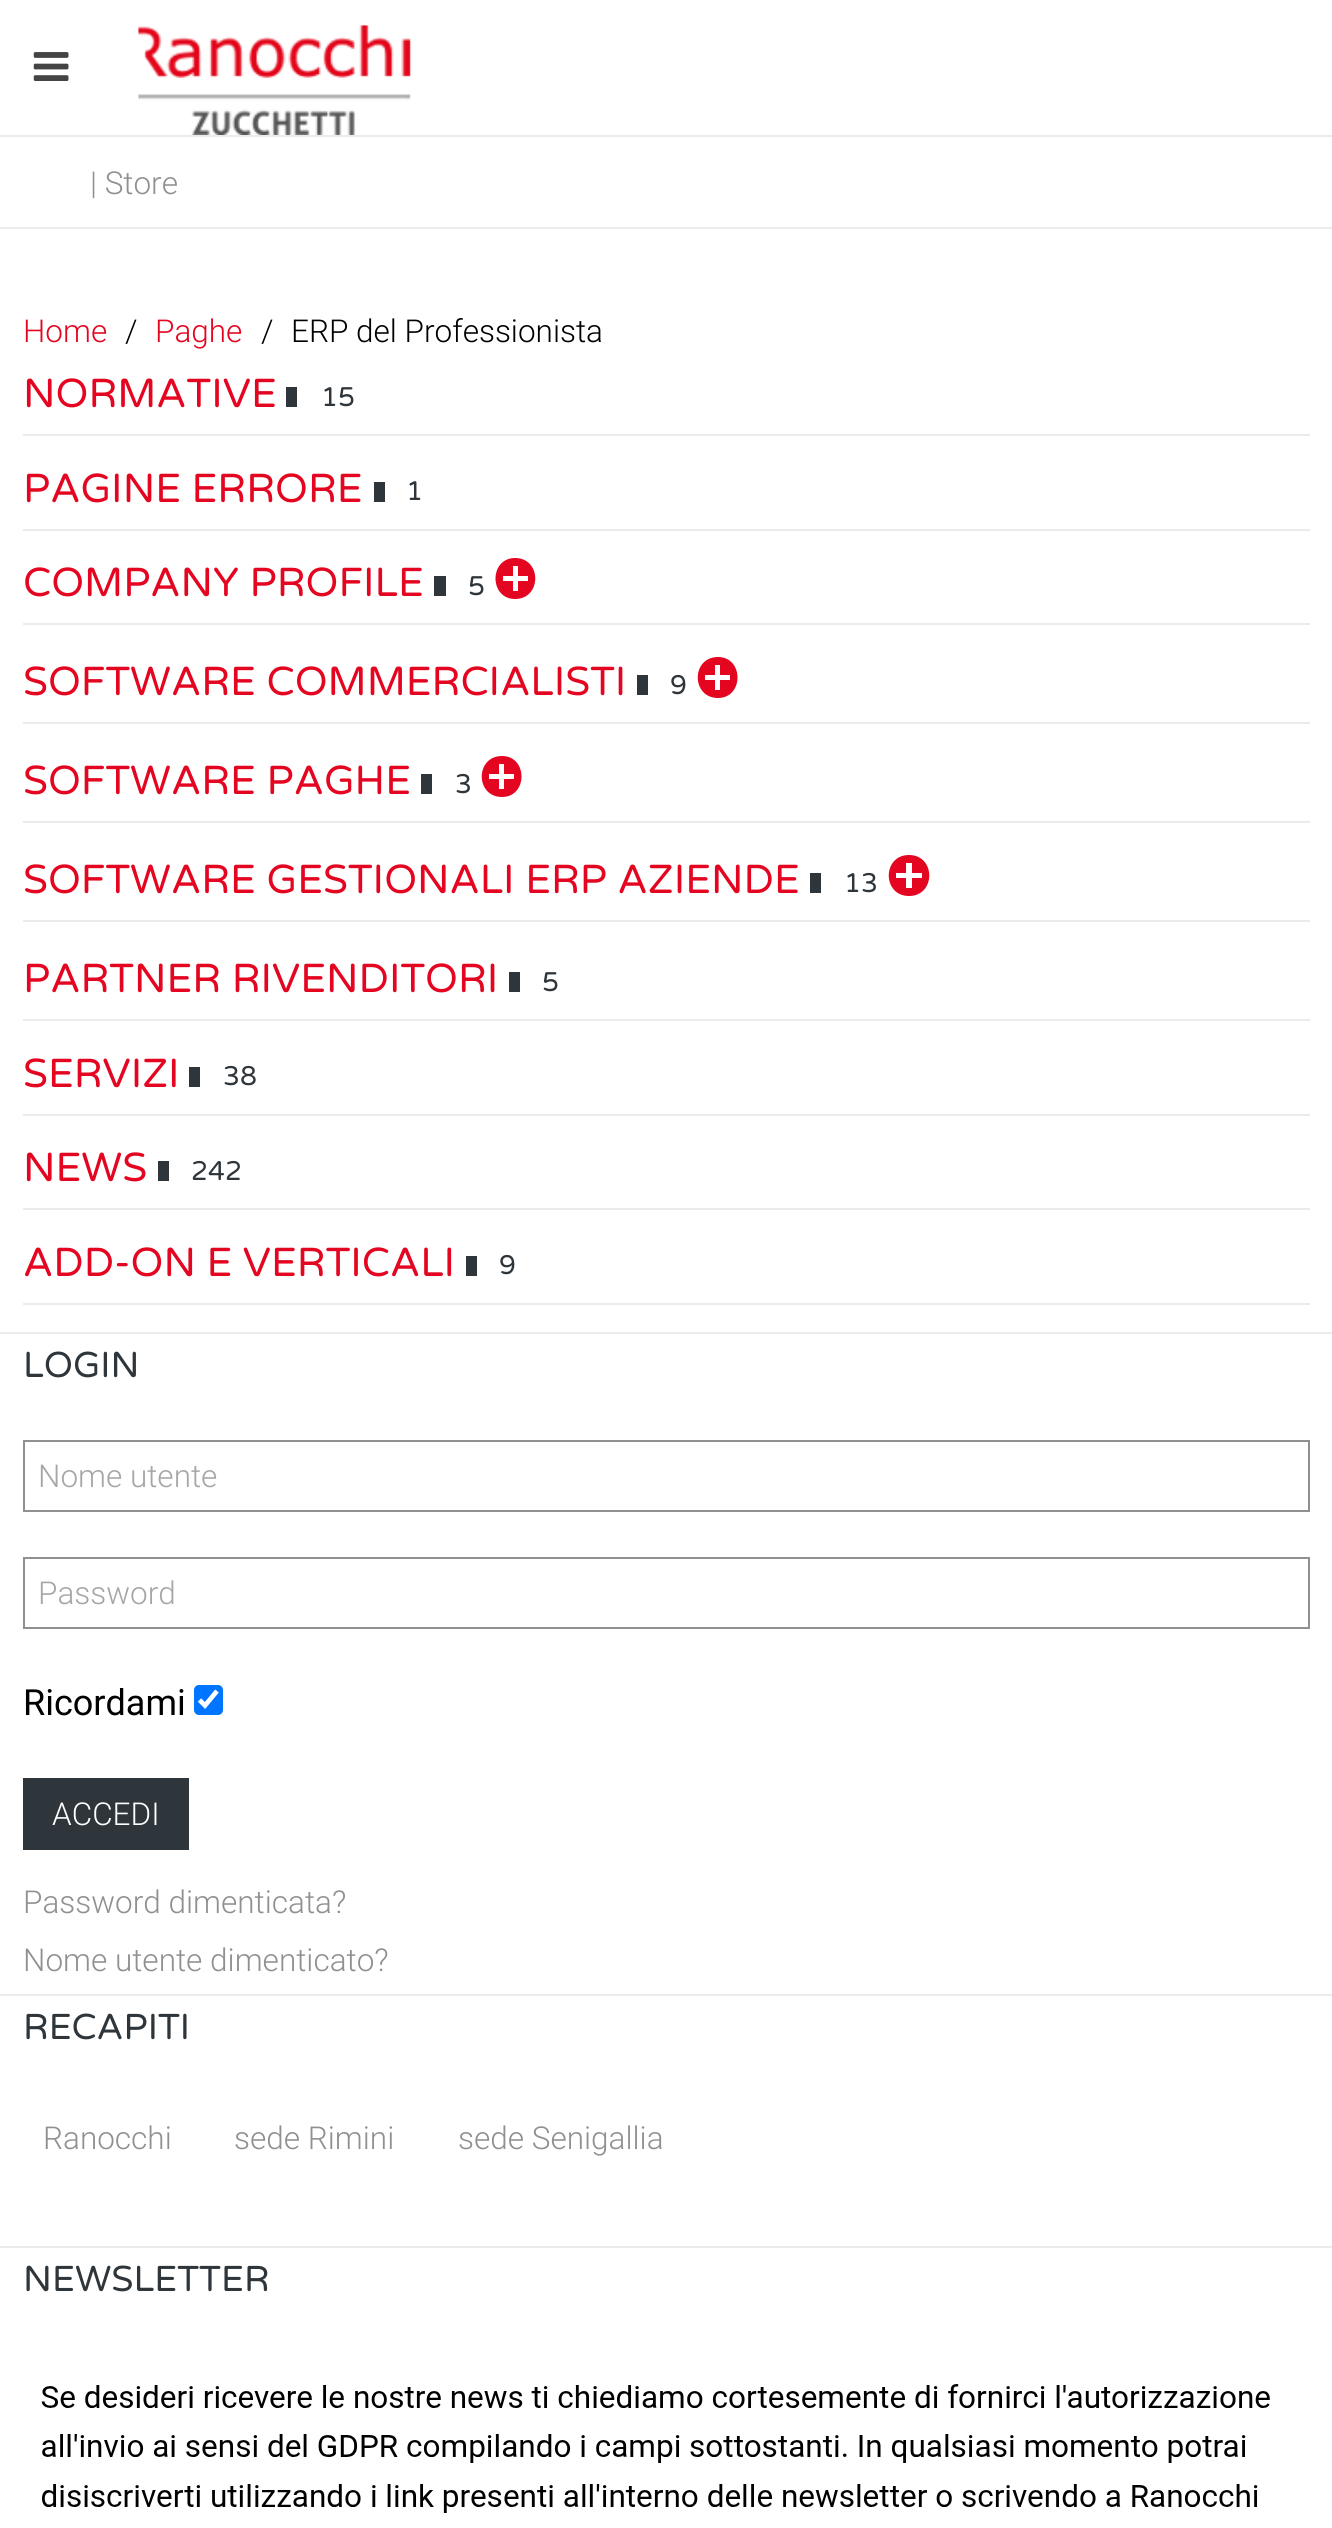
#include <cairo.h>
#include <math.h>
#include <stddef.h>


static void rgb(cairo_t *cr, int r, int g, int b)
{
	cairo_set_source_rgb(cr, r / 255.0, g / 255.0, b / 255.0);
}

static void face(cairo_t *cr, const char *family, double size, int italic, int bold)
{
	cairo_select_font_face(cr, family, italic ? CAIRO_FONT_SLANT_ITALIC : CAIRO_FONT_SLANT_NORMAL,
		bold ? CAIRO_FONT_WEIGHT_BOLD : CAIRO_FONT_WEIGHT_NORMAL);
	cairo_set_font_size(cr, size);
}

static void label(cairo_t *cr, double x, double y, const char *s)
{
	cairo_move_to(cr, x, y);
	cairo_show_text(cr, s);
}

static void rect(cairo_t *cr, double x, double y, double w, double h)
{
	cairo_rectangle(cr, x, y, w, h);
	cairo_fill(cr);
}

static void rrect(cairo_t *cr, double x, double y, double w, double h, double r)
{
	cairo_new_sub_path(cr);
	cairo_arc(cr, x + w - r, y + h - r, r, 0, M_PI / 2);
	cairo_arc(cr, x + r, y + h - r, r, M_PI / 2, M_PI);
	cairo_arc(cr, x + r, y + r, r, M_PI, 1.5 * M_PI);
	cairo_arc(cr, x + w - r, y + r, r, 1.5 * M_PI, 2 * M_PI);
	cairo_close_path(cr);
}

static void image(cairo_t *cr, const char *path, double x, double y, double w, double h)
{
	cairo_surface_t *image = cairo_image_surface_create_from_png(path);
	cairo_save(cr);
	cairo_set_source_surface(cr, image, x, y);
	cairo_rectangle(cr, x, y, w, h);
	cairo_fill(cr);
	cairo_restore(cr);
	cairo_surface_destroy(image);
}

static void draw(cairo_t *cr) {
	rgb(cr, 255, 255, 255);
	cairo_paint(cr);
	image(cr, "image0.png", 33, 52, 36, 29);
	image(cr, "image1.png", 138, 25, 273, 110);
	rgb(cr, 235, 235, 236);
	rect(cr, 0, 135, 1332, 2);
	face(cr, "Roboto Light", 31.5, 0, 0);
	rgb(cr, 142, 144, 145);
	label(cr, 90, 194, "| Store");
	rgb(cr, 235, 235, 236);
	rect(cr, 0, 227, 1332, 2);
	rgb(cr, 228, 5, 33);
	label(cr, 23, 342, "Home");
	rgb(cr, 0, 0, 0);
	label(cr, 125, 342, "/");
	rgb(cr, 228, 5, 33);
	label(cr, 155, 342, "Paghe");
	rgb(cr, 0, 0, 0);
	label(cr, 261, 342, "/");
	label(cr, 291, 342, "ERP del Professionista");
	rgb(cr, 235, 235, 236);
	rect(cr, 23, 434, 1287, 2);
	face(cr, "Varela Round", 40.5, 0, 0);
	rgb(cr, 228, 5, 33);
	label(cr, 23, 407, "NORMATIVE");
	rgb(cr, 47, 54, 59);
	rect(cr, 286, 387, 11, 20);
	face(cr, "Varela Round", 27, 0, 0);
	label(cr, 321, 406, "15");
	rgb(cr, 235, 235, 236);
	rect(cr, 23, 529, 1287, 2);
	face(cr, "Varela Round", 40.5, 0, 0);
	rgb(cr, 228, 5, 33);
	label(cr, 23, 502, "PAGINE ERRORE");
	rgb(cr, 47, 54, 59);
	rect(cr, 374, 482, 11, 20);
	face(cr, "Varela Round", 27, 0, 0);
	label(cr, 406, 500, "1");
	rgb(cr, 235, 235, 236);
	rect(cr, 23, 623, 1287, 2);
	face(cr, "Varela Round", 40.5, 0, 0);
	rgb(cr, 228, 5, 33);
	label(cr, 23, 596, "COMPANY PROFILE");
	rgb(cr, 47, 54, 59);
	rect(cr, 434, 576, 12, 20);
	face(cr, "Varela Round", 27, 0, 0);
	label(cr, 468, 595, "5");
	rgb(cr, 228, 5, 33);
	cairo_new_path(cr);
	cairo_move_to(cr, 515, 558);
	cairo_curve_to(cr, 542, 558, 542, 599, 515, 599);
	cairo_curve_to(cr, 489, 599, 489, 558, 515, 558);
	cairo_close_path(cr);
	cairo_move_to(cr, 518, 581);
	cairo_line_to(cr, 528, 581);
	cairo_line_to(cr, 528, 576);
	cairo_line_to(cr, 518, 576);
	cairo_line_to(cr, 518, 566);
	cairo_line_to(cr, 513, 566);
	cairo_line_to(cr, 513, 576);
	cairo_line_to(cr, 503, 576);
	cairo_line_to(cr, 503, 581);
	cairo_line_to(cr, 513, 581);
	cairo_line_to(cr, 513, 591);
	cairo_line_to(cr, 518, 591);
	cairo_close_path(cr);
	cairo_fill(cr);
	rgb(cr, 235, 235, 236);
	rect(cr, 23, 722, 1287, 2);
	face(cr, "Varela Round", 40.5, 0, 0);
	rgb(cr, 228, 5, 33);
	label(cr, 23, 695, "SOFTWARE COMMERCIALISTI");
	rgb(cr, 47, 54, 59);
	rect(cr, 637, 675, 11, 20);
	face(cr, "Varela Round", 27, 0, 0);
	label(cr, 670, 694, "9");
	rgb(cr, 228, 5, 33);
	cairo_new_path(cr);
	cairo_move_to(cr, 718, 657);
	cairo_curve_to(cr, 744, 657, 744, 698, 718, 698);
	cairo_curve_to(cr, 691, 698, 691, 657, 718, 657);
	cairo_close_path(cr);
	cairo_move_to(cr, 720, 680);
	cairo_line_to(cr, 730, 680);
	cairo_line_to(cr, 730, 675);
	cairo_line_to(cr, 720, 675);
	cairo_line_to(cr, 720, 665);
	cairo_line_to(cr, 715, 665);
	cairo_line_to(cr, 715, 675);
	cairo_line_to(cr, 705, 675);
	cairo_line_to(cr, 705, 680);
	cairo_line_to(cr, 715, 680);
	cairo_line_to(cr, 715, 690);
	cairo_line_to(cr, 720, 690);
	cairo_close_path(cr);
	cairo_fill(cr);
	rgb(cr, 235, 235, 236);
	rect(cr, 23, 821, 1287, 2);
	face(cr, "Varela Round", 40.5, 0, 0);
	rgb(cr, 228, 5, 33);
	label(cr, 23, 794, "SOFTWARE PAGHE");
	rgb(cr, 47, 54, 59);
	rect(cr, 421, 774, 11, 20);
	face(cr, "Varela Round", 27, 0, 0);
	label(cr, 455, 793, "3");
	rgb(cr, 228, 5, 33);
	cairo_new_path(cr);
	cairo_move_to(cr, 502, 756);
	cairo_curve_to(cr, 528, 756, 528, 797, 502, 797);
	cairo_curve_to(cr, 475, 797, 475, 756, 502, 756);
	cairo_close_path(cr);
	cairo_move_to(cr, 504, 779);
	cairo_line_to(cr, 514, 779);
	cairo_line_to(cr, 514, 774);
	cairo_line_to(cr, 504, 774);
	cairo_line_to(cr, 504, 764);
	cairo_line_to(cr, 499, 764);
	cairo_line_to(cr, 499, 774);
	cairo_line_to(cr, 489, 774);
	cairo_line_to(cr, 489, 779);
	cairo_line_to(cr, 499, 779);
	cairo_line_to(cr, 499, 789);
	cairo_line_to(cr, 504, 789);
	cairo_close_path(cr);
	cairo_fill(cr);
	rgb(cr, 235, 235, 236);
	rect(cr, 23, 920, 1287, 2);
	face(cr, "Varela Round", 40.5, 0, 0);
	rgb(cr, 228, 5, 33);
	label(cr, 23, 893, "SOFTWARE GESTIONALI ERP AZIENDE");
	rgb(cr, 47, 54, 59);
	rect(cr, 810, 873, 11, 20);
	face(cr, "Varela Round", 27, 0, 0);
	label(cr, 844, 892, "13");
	rgb(cr, 228, 5, 33);
	cairo_new_path(cr);
	cairo_move_to(cr, 909, 855);
	cairo_curve_to(cr, 936, 855, 936, 896, 909, 896);
	cairo_curve_to(cr, 882, 896, 882, 855, 909, 855);
	cairo_close_path(cr);
	cairo_move_to(cr, 912, 878);
	cairo_line_to(cr, 922, 878);
	cairo_line_to(cr, 922, 873);
	cairo_line_to(cr, 912, 873);
	cairo_line_to(cr, 912, 863);
	cairo_line_to(cr, 906, 863);
	cairo_line_to(cr, 906, 873);
	cairo_line_to(cr, 896, 873);
	cairo_line_to(cr, 896, 878);
	cairo_line_to(cr, 906, 878);
	cairo_line_to(cr, 906, 888);
	cairo_line_to(cr, 912, 888);
	cairo_close_path(cr);
	cairo_fill(cr);
	rgb(cr, 235, 235, 236);
	rect(cr, 23, 1019, 1287, 2);
	face(cr, "Varela Round", 40.5, 0, 0);
	rgb(cr, 228, 5, 33);
	label(cr, 23, 992, "PARTNER RIVENDITORI");
	rgb(cr, 47, 54, 59);
	rect(cr, 509, 972, 11, 20);
	face(cr, "Varela Round", 27, 0, 0);
	label(cr, 542, 991, "5");
	rgb(cr, 235, 235, 236);
	rect(cr, 23, 1114, 1287, 2);
	face(cr, "Varela Round", 40.5, 0, 0);
	rgb(cr, 228, 5, 33);
	label(cr, 23, 1087, "SERVIZI");
	rgb(cr, 47, 54, 59);
	rect(cr, 189, 1067, 11, 20);
	face(cr, "Varela Round", 27, 0, 0);
	label(cr, 223, 1085, "38");
	rgb(cr, 235, 235, 236);
	rect(cr, 23, 1208, 1287, 2);
	face(cr, "Varela Round", 40.5, 0, 0);
	rgb(cr, 228, 5, 33);
	label(cr, 23, 1181, "NEWS");
	rgb(cr, 47, 54, 59);
	rect(cr, 158, 1161, 11, 20);
	face(cr, "Varela Round", 27, 0, 0);
	label(cr, 191, 1180, "242");
	rgb(cr, 235, 235, 236);
	rect(cr, 23, 1303, 1287, 2);
	face(cr, "Varela Round", 40.5, 0, 0);
	rgb(cr, 228, 5, 33);
	label(cr, 23, 1276, "ADD-ON E VERTICALI");
	rgb(cr, 47, 54, 59);
	rect(cr, 466, 1256, 11, 20);
	face(cr, "Varela Round", 27, 0, 0);
	label(cr, 499, 1274, "9");
	rgb(cr, 235, 235, 236);
	rect(cr, 0, 1332, 1332, 2);
	face(cr, "Varela Round", 36, 0, 0);
	rgb(cr, 47, 54, 59);
	label(cr, 23, 1377, "LOGIN");
	cairo_rectangle(cr, 24, 1441, 1285, 70);
	rgb(cr, 142, 144, 145);
	cairo_stroke(cr);
	face(cr, "Roboto Light", 31.5, 0, 0);
	rgb(cr, 164, 166, 168);
	label(cr, 38, 1487, "Nome utente");
	cairo_rectangle(cr, 24, 1558, 1285, 70);
	rgb(cr, 142, 144, 145);
	cairo_stroke(cr);
	rgb(cr, 164, 166, 168);
	label(cr, 38, 1604, "Password");
	face(cr, "Roboto", 36, 0, 0);
	rgb(cr, 0, 0, 0);
	label(cr, 23, 1715, "Ricordami");
	rgb(cr, 0, 117, 255);
	rrect(cr, 194, 1685, 29, 30, 5);
	cairo_fill(cr);
	cairo_new_path(cr);
	cairo_move_to(cr, 199.5, 1700);
	cairo_line_to(cr, 205, 1705.5);
	cairo_line_to(cr, 217, 1691);
	rgb(cr, 255, 255, 255);
	cairo_set_line_width(cr, 4.7);
	cairo_stroke(cr);
	rgb(cr, 47, 54, 59);
	rect(cr, 23, 1778, 166, 72);
	face(cr, "Roboto Light", 31.5, 0, 0);
	rgb(cr, 255, 255, 255);
	label(cr, 52, 1825, "ACCEDI");
	rgb(cr, 142, 144, 145);
	label(cr, 23, 1913, "Password dimenticata?");
	label(cr, 23, 1971, "Nome utente dimenticato?");
	rgb(cr, 235, 235, 236);
	rect(cr, 0, 1994, 1332, 2);
	face(cr, "Varela Round", 36, 0, 0);
	rgb(cr, 47, 54, 59);
	label(cr, 23, 2039, "RECAPITI");
	face(cr, "Roboto Light", 31.5, 0, 0);
	rgb(cr, 142, 144, 145);
	label(cr, 43, 2149, "Ranocchi");
	label(cr, 234, 2149, "sede Rimini");
	label(cr, 458, 2149, "sede Senigallia");
	rgb(cr, 235, 235, 236);
	rect(cr, 0, 2246, 1332, 2);
	face(cr, "Varela Round", 36, 0, 0);
	rgb(cr, 47, 54, 59);
	label(cr, 23, 2291, "NEWSLETTER");
	image(cr, "image2.png", 41, 2384, 1229, 129);
}

int main(void) {
	cairo_surface_t *surface = cairo_image_surface_create(CAIRO_FORMAT_RGB24, 1332, 2528);
	cairo_t *cr = cairo_create(surface);
	cairo_font_options_t *options = cairo_font_options_create();
	cairo_font_options_set_hint_metrics(options, CAIRO_HINT_METRICS_OFF);
	cairo_font_options_set_hint_style(options, CAIRO_HINT_STYLE_NONE);
	cairo_set_font_options(cr, options);
	cairo_set_miter_limit(cr, 4);
	draw(cr);
	cairo_surface_write_to_png(surface, "render.png");
	cairo_font_options_destroy(options);
	cairo_destroy(cr);
	cairo_surface_destroy(surface);
	return 0;
}
